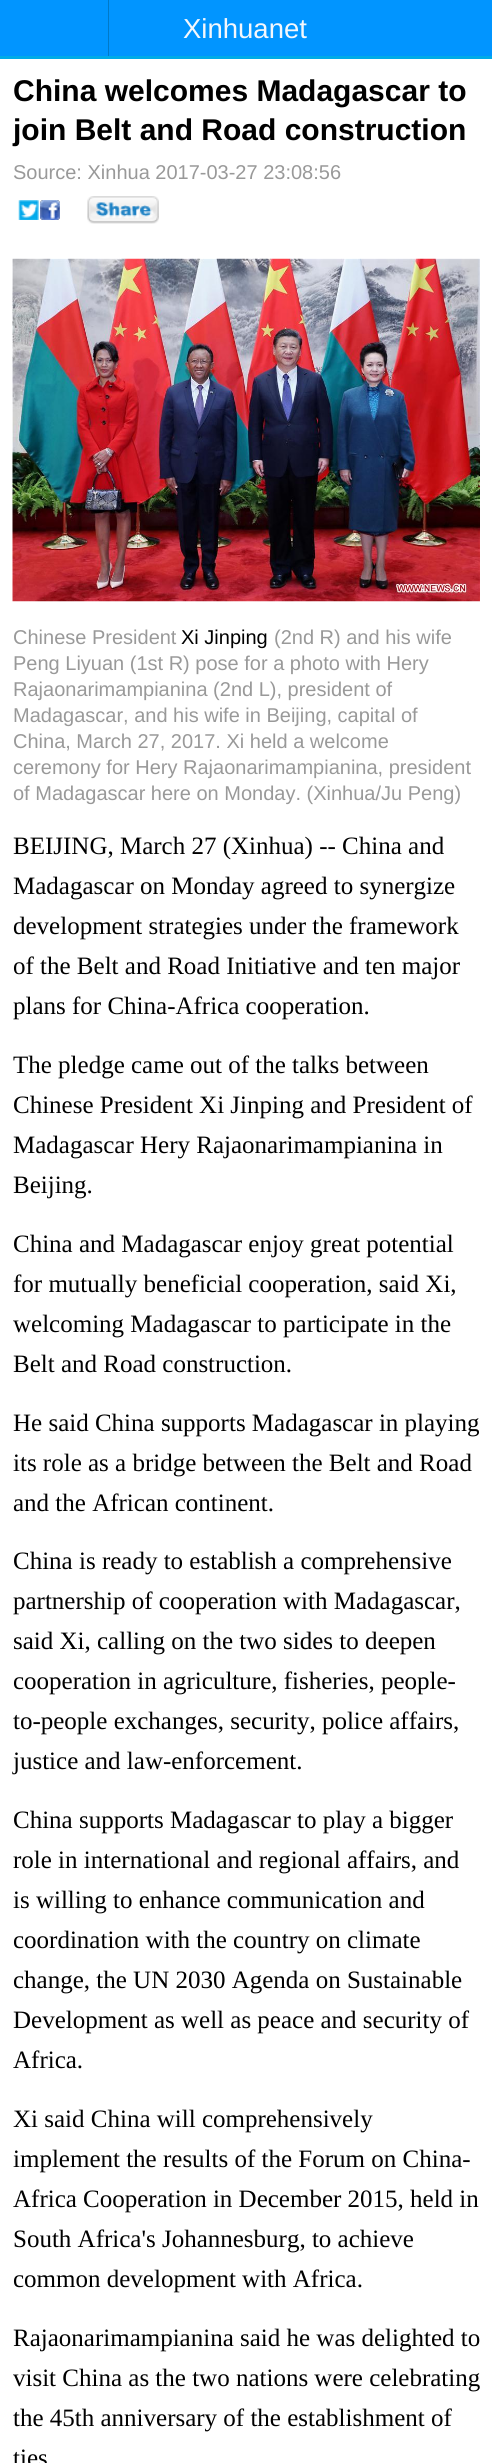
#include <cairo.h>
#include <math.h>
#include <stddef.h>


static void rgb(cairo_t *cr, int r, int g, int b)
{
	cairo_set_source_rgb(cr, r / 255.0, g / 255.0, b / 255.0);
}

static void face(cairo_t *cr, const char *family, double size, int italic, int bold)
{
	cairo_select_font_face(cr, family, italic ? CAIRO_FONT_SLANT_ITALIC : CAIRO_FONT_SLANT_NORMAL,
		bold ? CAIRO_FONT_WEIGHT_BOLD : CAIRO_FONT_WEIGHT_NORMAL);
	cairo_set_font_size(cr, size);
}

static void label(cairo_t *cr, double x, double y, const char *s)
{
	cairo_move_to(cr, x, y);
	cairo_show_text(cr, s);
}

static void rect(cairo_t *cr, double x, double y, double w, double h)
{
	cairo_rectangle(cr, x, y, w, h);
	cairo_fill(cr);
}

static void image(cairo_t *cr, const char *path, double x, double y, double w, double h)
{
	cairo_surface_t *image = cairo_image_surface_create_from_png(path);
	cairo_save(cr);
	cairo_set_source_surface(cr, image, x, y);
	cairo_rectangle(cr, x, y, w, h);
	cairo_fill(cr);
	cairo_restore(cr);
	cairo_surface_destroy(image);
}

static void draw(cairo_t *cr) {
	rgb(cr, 255, 255, 255);
	cairo_paint(cr);
	rgb(cr, 1, 149, 255);
	rect(cr, 0, 0, 492, 56);
	rgb(cr, 0, 171, 231);
	rect(cr, 0, 56, 492, 3);
	rgb(cr, 0, 121, 200);
	rect(cr, 108, 0, 1, 56);
	face(cr, "Liberation Sans", 27.5, 0, 0);
	rgb(cr, 244, 247, 252);
	label(cr, 183, 38, "Xinhuanet");
	face(cr, "Liberation Sans", 30, 0, 1);
	rgb(cr, 0, 0, 0);
	label(cr, 13, 101, "China welcomes Madagascar to");
	label(cr, 13, 140, "join Belt and Road construction");
	face(cr, "Liberation Sans", 20, 0, 0);
	rgb(cr, 153, 153, 153);
	label(cr, 13, 179, "Source: Xinhua 2017-03-27 23:08:56");
	image(cr, "image0.png", 18, 200, 21, 20);
	image(cr, "image1.png", 40, 200, 20, 20);
	image(cr, "image2.png", 87, 196, 72, 28);
	image(cr, "image3.png", 12, 258, 468, 344);
	label(cr, 13, 644, "Chinese President");
	rgb(cr, 0, 0, 0);
	label(cr, 181, 644, "Xi Jinping");
	rgb(cr, 153, 153, 153);
	label(cr, 274, 644, "(2nd R) and his wife");
	label(cr, 13, 670, "Peng Liyuan (1st R) pose for a photo with Hery");
	label(cr, 13, 696, "Rajaonarimampianina (2nd L), president of");
	label(cr, 13, 722, "Madagascar, and his wife in Beijing, capital of");
	label(cr, 13, 748, "China, March 27, 2017. Xi held a welcome");
	label(cr, 13, 774, "ceremony for Hery Rajaonarimampianina, president");
	label(cr, 13, 800, "of Madagascar here on Monday. (Xinhua/Ju Peng)");
	face(cr, "Liberation Serif", 25, 0, 0);
	rgb(cr, 0, 0, 0);
	label(cr, 13, 854, "BEIJING, March 27 (Xinhua) -- China and");
	label(cr, 13, 894, "Madagascar on Monday agreed to synergize");
	label(cr, 13, 934, "development strategies under the framework");
	label(cr, 13, 974, "of the Belt and Road Initiative and ten major");
	label(cr, 13, 1014, "plans for China-Africa cooperation.");
	label(cr, 13, 1073, "The pledge came out of the talks between");
	label(cr, 13, 1113, "Chinese President Xi Jinping and President of");
	label(cr, 13, 1153, "Madagascar Hery Rajaonarimampianina in");
	label(cr, 13, 1193, "Beijing.");
	label(cr, 13, 1252, "China and Madagascar enjoy great potential");
	label(cr, 13, 1292, "for mutually beneficial cooperation, said Xi,");
	label(cr, 13, 1332, "welcoming Madagascar to participate in the");
	label(cr, 13, 1372, "Belt and Road construction.");
	label(cr, 13, 1431, "He said China supports Madagascar in playing");
	label(cr, 13, 1471, "its role as a bridge between the Belt and Road");
	label(cr, 13, 1511, "and the African continent.");
	label(cr, 13, 1569, "China is ready to establish a comprehensive");
	label(cr, 13, 1609, "partnership of cooperation with Madagascar,");
	label(cr, 13, 1649, "said Xi, calling on the two sides to deepen");
	label(cr, 13, 1689, "cooperation in agriculture, fisheries, people-");
	label(cr, 13, 1729, "to-people exchanges, security, police affairs,");
	label(cr, 13, 1769, "justice and law-enforcement.");
	label(cr, 13, 1828, "China supports Madagascar to play a bigger");
	label(cr, 13, 1868, "role in international and regional affairs, and");
	label(cr, 13, 1908, "is willing to enhance communication and");
	label(cr, 13, 1948, "coordination with the country on climate");
	label(cr, 13, 1988, "change, the UN 2030 Agenda on Sustainable");
	label(cr, 13, 2028, "Development as well as peace and security of");
	label(cr, 13, 2068, "Africa.");
	label(cr, 13, 2127, "Xi said China will comprehensively");
	label(cr, 13, 2167, "implement the results of the Forum on China-");
	label(cr, 13, 2207, "Africa Cooperation in December 2015, held in");
	label(cr, 13, 2247, "South Africa's Johannesburg, to achieve");
	label(cr, 13, 2287, "common development with Africa.");
	label(cr, 13, 2346, "Rajaonarimampianina said he was delighted to");
	label(cr, 13, 2386, "visit China as the two nations were celebrating");
	label(cr, 13, 2426, "the 45th anniversary of the establishment of");
	label(cr, 13, 2466, "ties");
}

int main(void) {
	cairo_surface_t *surface = cairo_image_surface_create(CAIRO_FORMAT_RGB24, 492, 2463);
	cairo_t *cr = cairo_create(surface);
	cairo_font_options_t *options = cairo_font_options_create();
	cairo_font_options_set_hint_metrics(options, CAIRO_HINT_METRICS_OFF);
	cairo_font_options_set_hint_style(options, CAIRO_HINT_STYLE_NONE);
	cairo_set_font_options(cr, options);
	cairo_set_miter_limit(cr, 4);
	draw(cr);
	cairo_surface_write_to_png(surface, "render.png");
	cairo_font_options_destroy(options);
	cairo_destroy(cr);
	cairo_surface_destroy(surface);
	return 0;
}
